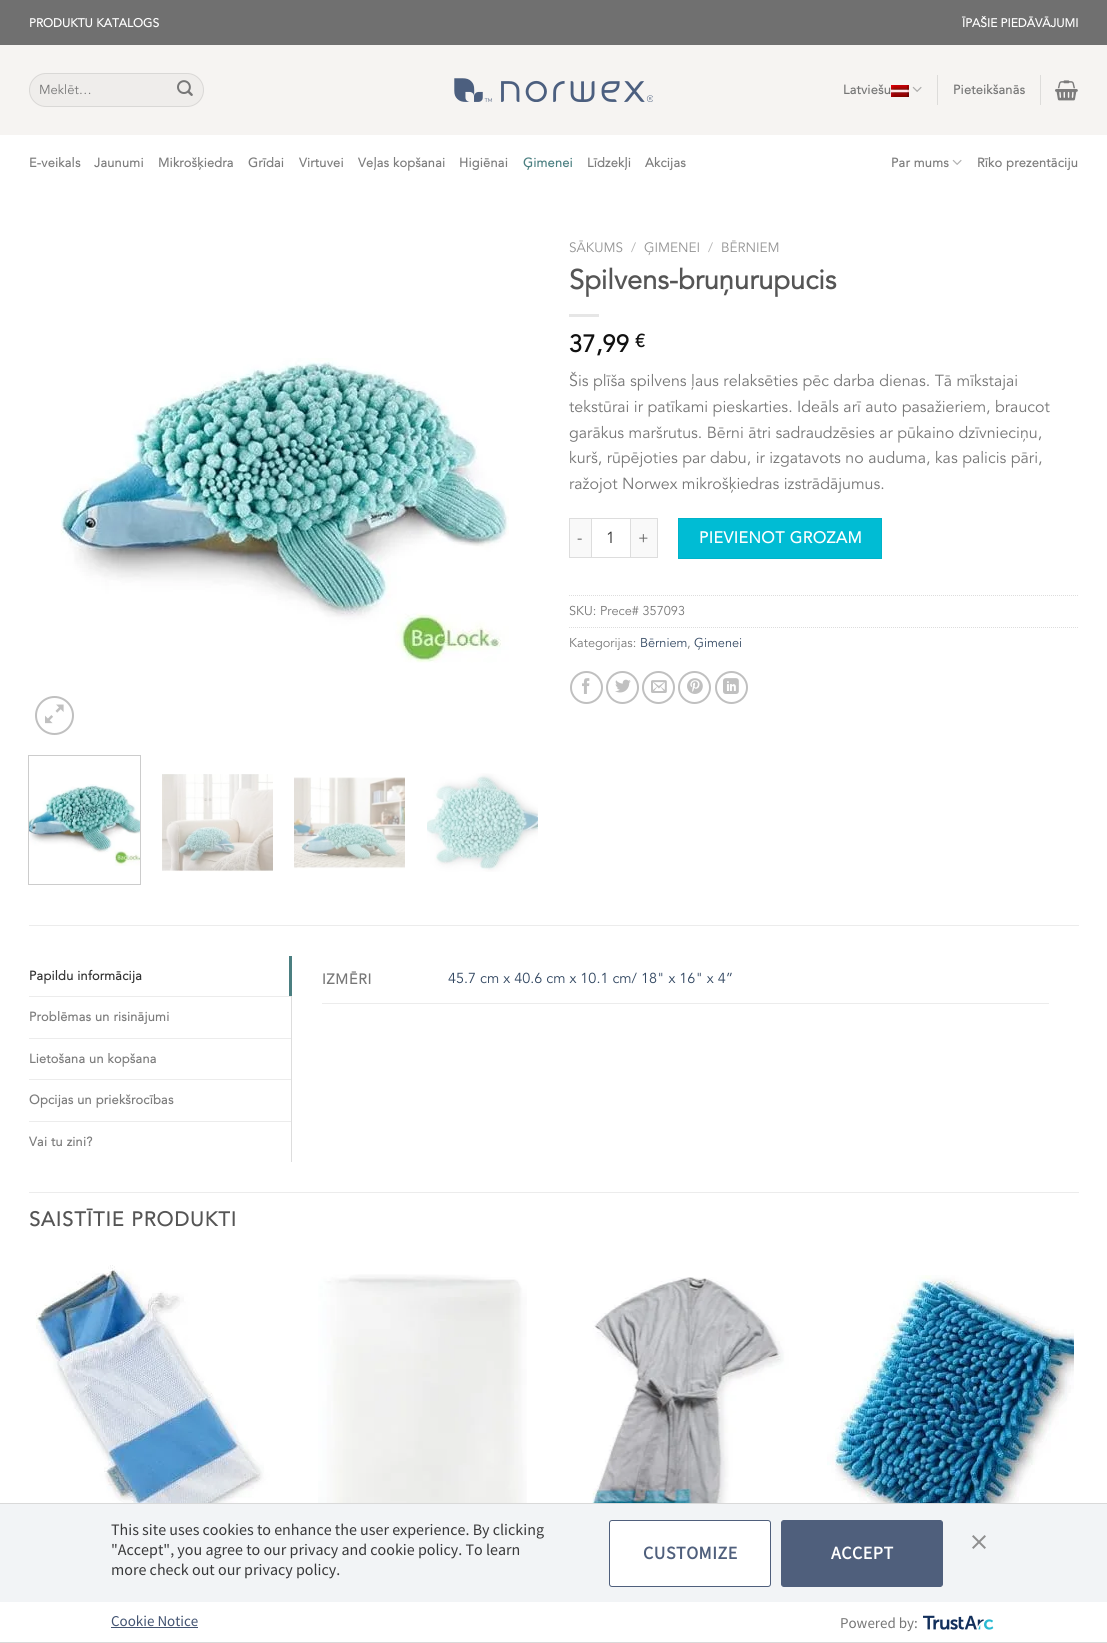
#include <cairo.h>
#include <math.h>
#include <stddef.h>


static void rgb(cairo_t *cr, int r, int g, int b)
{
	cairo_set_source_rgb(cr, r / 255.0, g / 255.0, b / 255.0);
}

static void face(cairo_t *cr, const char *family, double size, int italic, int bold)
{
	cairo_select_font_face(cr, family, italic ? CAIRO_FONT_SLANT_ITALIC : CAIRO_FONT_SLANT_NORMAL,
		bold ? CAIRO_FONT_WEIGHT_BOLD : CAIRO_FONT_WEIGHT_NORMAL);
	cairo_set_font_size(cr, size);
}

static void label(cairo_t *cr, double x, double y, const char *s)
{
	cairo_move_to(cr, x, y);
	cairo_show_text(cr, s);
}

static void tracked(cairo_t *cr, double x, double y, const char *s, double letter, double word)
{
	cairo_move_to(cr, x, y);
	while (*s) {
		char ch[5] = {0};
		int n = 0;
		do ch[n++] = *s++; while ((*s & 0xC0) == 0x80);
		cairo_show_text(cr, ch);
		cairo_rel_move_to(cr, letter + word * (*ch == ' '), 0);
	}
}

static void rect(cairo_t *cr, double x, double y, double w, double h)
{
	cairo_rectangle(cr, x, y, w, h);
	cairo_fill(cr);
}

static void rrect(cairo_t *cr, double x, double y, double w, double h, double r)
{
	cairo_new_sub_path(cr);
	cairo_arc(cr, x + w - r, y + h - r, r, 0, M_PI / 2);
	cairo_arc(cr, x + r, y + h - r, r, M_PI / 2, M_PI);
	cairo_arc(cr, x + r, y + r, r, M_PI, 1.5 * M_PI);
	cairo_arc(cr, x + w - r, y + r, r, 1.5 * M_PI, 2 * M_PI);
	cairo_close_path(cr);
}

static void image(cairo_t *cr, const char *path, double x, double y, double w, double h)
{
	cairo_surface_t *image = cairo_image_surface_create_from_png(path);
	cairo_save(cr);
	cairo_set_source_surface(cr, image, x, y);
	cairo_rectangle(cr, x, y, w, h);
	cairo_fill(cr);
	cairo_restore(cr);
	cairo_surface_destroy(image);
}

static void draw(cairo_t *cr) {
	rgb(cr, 255, 255, 255);
	cairo_paint(cr);
	rgb(cr, 112, 112, 112);
	rect(cr, 0, 0, 1107, 45);
	face(cr, "Avenir", 12, 0, 1);
	rgb(cr, 255, 255, 255);
	label(cr, 29, 27, "PRODUKTU KATALOGS");
	label(cr, 962, 27, "ĪPAŠIE PIEDĀVĀJUMI");
	rgb(cr, 246, 244, 242);
	rect(cr, 0, 45, 1107, 90);
	rgb(cr, 239, 237, 235);
	rrect(cr, 29, 73, 175, 34, 17);
	cairo_fill(cr);
	rrect(cr, 29.5, 73.5, 174, 33, 16.5);
	cairo_set_source_rgba(cr, 0, 0, 0, 0.09);
	cairo_set_line_width(cr, 1);
	cairo_stroke(cr);
	face(cr, "Avenir", 13, 0, 0);
	rgb(cr, 119, 119, 119);
	label(cr, 39, 94, "Meklēt…");
	image(cr, "image0.png", 177, 80, 16, 16);
	image(cr, "image1.png", 454, 78, 199, 24);
	face(cr, "Avenir", 12.75, 0, 1);
	tracked(cr, 843, 94, "Latviešu", 0.25, 0);
	image(cr, "image2.png", 891, 85, 18, 12);
	image(cr, "image3.png", 912, 86, 10, 6);
	rgb(cr, 221, 220, 218);
	rect(cr, 937, 75, 1, 30);
	rgb(cr, 119, 119, 119);
	tracked(cr, 953, 94, "Pieteikšanās", 0.25, 0);
	rgb(cr, 221, 220, 218);
	rect(cr, 1040, 75, 1, 30);
	image(cr, "image4.png", 1055, 80, 23, 21);
	rgb(cr, 125, 125, 125);
	tracked(cr, 29, 167, "E-veikals", 0.25, 0);
	tracked(cr, 94, 167, "Jaunumi", 0.25, 0);
	tracked(cr, 158, 167, "Mikrošķiedra", 0.25, 0);
	tracked(cr, 248, 167, "Grīdai", 0.25, 0);
	tracked(cr, 299, 167, "Virtuvei", 0.25, 0);
	tracked(cr, 358, 167, "Veļas kopšanai", 0.25, 0);
	tracked(cr, 459, 167, "Higiēnai", 0.25, 0);
	rgb(cr, 75, 127, 129);
	tracked(cr, 523, 167, "Ģimenei", 0.25, 0);
	rgb(cr, 125, 125, 125);
	tracked(cr, 587, 167, "Līdzekļi", 0.25, 0);
	tracked(cr, 645, 167, "Akcijas", 0.25, 0);
	tracked(cr, 891, 167, "Par mums", 0.25, 0);
	image(cr, "image5.png", 952, 159, 10, 6);
	tracked(cr, 977, 167, "Rīko prezentāciju", 0.25, 0);
	image(cr, "image6.png", 60, 358, 449, 305);
	cairo_arc(cr, 54.5, 715.5, 18.5, 0, 2 * M_PI);
	rgb(cr, 192, 192, 192);
	cairo_set_line_width(cr, 2);
	cairo_stroke(cr);
	image(cr, "image7.png", 45, 704, 19, 20);
	cairo_rectangle(cr, 28.5, 755.5, 112, 129);
	rgb(cr, 204, 204, 204);
	cairo_set_line_width(cr, 1);
	cairo_stroke(cr);
	image(cr, "image8.png", 29, 784, 111, 82);
	image(cr, "image9.png", 162, 774, 111, 98);
	image(cr, "image10.png", 294, 777, 111, 92);
	image(cr, "image11.png", 427, 773, 111, 99);
	face(cr, "Avenir", 13.5, 0, 0);
	rgb(cr, 148, 148, 148);
	label(cr, 569, 252, "SĀKUMS");
	rgb(cr, 178, 178, 178);
	label(cr, 631, 252, "/");
	rgb(cr, 148, 148, 148);
	label(cr, 644, 252, "ĢIMENEI");
	rgb(cr, 178, 178, 178);
	label(cr, 708, 252, "/");
	rgb(cr, 148, 148, 148);
	label(cr, 721, 252, "BĒRNIEM");
	face(cr, "Avenir", 27.25, 0, 1);
	rgb(cr, 85, 85, 85);
	label(cr, 569, 289, "Spilvens-bruņurupucis");
	rgb(cr, 230, 230, 230);
	rect(cr, 569, 314, 30, 3);
	face(cr, "Avenir", 24, 0, 1);
	rgb(cr, 17, 17, 17);
	label(cr, 569, 352, "37,99");
	face(cr, "Avenir", 18, 0, 1);
	label(cr, 635, 347, "€");
	face(cr, "Avenir", 16, 0, 0);
	rgb(cr, 119, 119, 119);
	label(cr, 569, 386, "Šis plīša spilvens ļaus relaksēties pēc darba dienas. Tā mīkstajai");
	label(cr, 569, 412, "tekstūrai ir patīkami pieskarties. Ideāls arī auto pasažieriem, braucot");
	label(cr, 569, 438, "garākus maršrutus. Bērni ātri sadraudzēsies ar pūkaino dzīvnieciņu,");
	label(cr, 569, 463, "kurš, rūpējoties par dabu, ir izgatavots no auduma, kas palicis pāri,");
	label(cr, 569, 489, "ražojot Norwex mikrošķiedras izstrādājumus.");
	rgb(cr, 249, 249, 249);
	rect(cr, 570, 519, 21, 38);
	rgb(cr, 221, 221, 221);
	rect(cr, 569, 518, 22, 1);
	rect(cr, 569, 557, 22, 1);
	rect(cr, 569, 518, 1, 40);
	rgb(cr, 102, 102, 102);
	label(cr, 577, 543, "-");
	cairo_rectangle(cr, 591.5, 518.5, 39, 39);
	rgb(cr, 221, 221, 221);
	cairo_stroke(cr);
	rgb(cr, 51, 51, 51);
	label(cr, 606, 543, "1");
	rgb(cr, 249, 249, 249);
	rect(cr, 631, 519, 26, 38);
	rgb(cr, 221, 221, 221);
	rect(cr, 631, 518, 27, 1);
	rect(cr, 657, 518, 1, 40);
	rect(cr, 631, 557, 27, 1);
	rgb(cr, 102, 102, 102);
	label(cr, 638, 543, "+");
	rgb(cr, 0, 188, 212);
	cairo_rectangle(cr, 678.5, 518.5, 203, 40);
	cairo_fill_preserve(cr);
	rgb(cr, 0, 179, 201);
	cairo_stroke(cr);
	face(cr, "Avenir", 16, 0, 1);
	rgb(cr, 255, 255, 255);
	tracked(cr, 699, 543, "PIEVIENOT GROZAM", 0.5, 0);
	cairo_new_path(cr);
	cairo_move_to(cr, 569, 595.5);
	cairo_line_to(cr, 1079, 595.5);
	rgb(cr, 221, 221, 221);
	cairo_set_dash(cr, (double[]){1, 1}, 2, 0);
	cairo_stroke(cr);
	face(cr, "Avenir", 12.75, 0, 0);
	rgb(cr, 119, 119, 119);
	label(cr, 569, 615, "SKU: Prece# 357093");
	cairo_new_path(cr);
	cairo_move_to(cr, 569, 627.5);
	cairo_line_to(cr, 1079, 627.5);
	rgb(cr, 221, 221, 221);
	cairo_stroke(cr);
	rgb(cr, 119, 119, 119);
	label(cr, 569, 647, "Kategorijas:");
	rgb(cr, 51, 72, 98);
	label(cr, 640, 647, "Bērniem");
	rgb(cr, 119, 119, 119);
	label(cr, 687, 647, ",");
	rgb(cr, 51, 72, 98);
	label(cr, 694, 647, "Ģimenei");
	cairo_new_path(cr);
	cairo_arc(cr, 586.5, 687.5, 15.5, 0, 2 * M_PI);
	rgb(cr, 192, 192, 192);
	cairo_set_line_width(cr, 2);
	cairo_set_dash(cr, NULL, 0, 0);
	cairo_stroke(cr);
	image(cr, "image12.png", 582, 678, 8, 16);
	cairo_arc(cr, 622.5, 687.5, 15.5, 0, 2 * M_PI);
	cairo_stroke(cr);
	image(cr, "image13.png", 615, 679, 16, 14);
	cairo_arc(cr, 658.5, 687.5, 15.5, 0, 2 * M_PI);
	cairo_stroke(cr);
	image(cr, "image14.png", 651, 680, 16, 13);
	cairo_arc(cr, 694.5, 687.5, 15.5, 0, 2 * M_PI);
	cairo_stroke(cr);
	image(cr, "image15.png", 687, 678, 16, 16);
	cairo_arc(cr, 731.5, 687.5, 15.5, 0, 2 * M_PI);
	cairo_stroke(cr);
	image(cr, "image16.png", 723, 678, 16, 16);
	rgb(cr, 236, 236, 236);
	rect(cr, 29, 925, 1050, 1);
	face(cr, "Avenir", 12.75, 0, 1);
	rgb(cr, 51, 51, 51);
	tracked(cr, 29, 980, "Papildu informācija", 0.25, 0);
	rgb(cr, 75, 127, 129);
	rect(cr, 289, 956, 3, 40);
	rgb(cr, 236, 236, 236);
	rect(cr, 29, 996, 262, 1);
	rgb(cr, 125, 125, 125);
	tracked(cr, 29, 1021, "Problēmas un risinājumi", 0.25, 0);
	rgb(cr, 236, 236, 236);
	rect(cr, 29, 1038, 262, 1);
	rgb(cr, 125, 125, 125);
	tracked(cr, 29, 1063, "Lietošana un kopšana", 0.25, 0);
	rgb(cr, 236, 236, 236);
	rect(cr, 29, 1079, 262, 1);
	rgb(cr, 125, 125, 125);
	tracked(cr, 29, 1104, "Opcijas un priekšrocības", 0.25, 0);
	rgb(cr, 236, 236, 236);
	rect(cr, 29, 1121, 262, 1);
	rgb(cr, 125, 125, 125);
	tracked(cr, 29, 1146, "Vai tu zini?", 0.25, 0);
	rgb(cr, 221, 221, 221);
	rect(cr, 291, 996, 1, 166);
	rgb(cr, 236, 236, 236);
	rect(cr, 322, 1003, 727, 1);
	face(cr, "Avenir", 14.4, 0, 1);
	rgb(cr, 119, 119, 119);
	tracked(cr, 322, 984, "IZMĒRI", 0.75, 0);
	face(cr, "Avenir", 14.4, 0, 0);
	rgb(cr, 51, 72, 98);
	label(cr, 448, 983, "45.7 cm x 40.6 cm x 10.1 cm/ 18\" x 16\" x 4”");
	rgb(cr, 236, 236, 236);
	rect(cr, 29, 1192, 1050, 1);
	face(cr, "Avenir", 20, 0, 1);
	rgb(cr, 85, 85, 85);
	tracked(cr, 29, 1226, "SAISTĪTIE PRODUKTI", 1, 0);
	image(cr, "image17.png", 28, 1265, 244, 238);
	image(cr, "image18.png", 318, 1274, 209, 229);
	image(cr, "image19.png", 592, 1277, 215, 226);
	image(cr, "image20.png", 827, 1275, 247, 228);
	rgb(cr, 242, 244, 246);
	rect(cr, 0, 1504, 1107, 98);
	rgb(cr, 217, 217, 217);
	rect(cr, 0, 1503, 1107, 1);
	rect(cr, 0, 1642, 1107, 1);
	face(cr, "Source Sans Pro", 16, 0, 0);
	rgb(cr, 57, 57, 58);
	label(cr, 111, 1535, "This site uses cookies to enhance the user experience. By clicking");
	label(cr, 111, 1555, "\"Accept\", you agree to our privacy and cookie policy. To learn");
	label(cr, 111, 1575, "more check out our privacy policy.");
	image(cr, "image21.png", 972, 1535, 14, 14);
	rgb(cr, 255, 255, 255);
	rrect(cr, 609.5, 1520.5, 161, 66, 2.5);
	cairo_fill_preserve(cr);
	rgb(cr, 79, 95, 124);
	cairo_set_line_width(cr, 1);
	cairo_stroke(cr);
	face(cr, "Source Sans Pro", 18, 0, 1);
	tracked(cr, 643, 1559, "CUSTOMIZE", 0.5, 0);
	rrect(cr, 781.5, 1520.5, 161, 66, 2.5);
	cairo_fill_preserve(cr);
	cairo_stroke(cr);
	rgb(cr, 255, 255, 255);
	tracked(cr, 831, 1559, "ACCEPT", 0.5, 0);
	face(cr, "Source Sans Pro", 15, 0, 0);
	rgb(cr, 67, 84, 114);
	label(cr, 111, 1626, "Cookie Notice");
	rect(cr, 111, 1627, 87, 1);
	rgb(cr, 119, 119, 119);
	label(cr, 840, 1628, "Powered by:");
	image(cr, "image22.png", 923, 1615, 71, 15);
}

int main(void) {
	cairo_surface_t *surface = cairo_image_surface_create(CAIRO_FORMAT_RGB24, 1107, 1643);
	cairo_t *cr = cairo_create(surface);
	cairo_font_options_t *options = cairo_font_options_create();
	cairo_font_options_set_hint_metrics(options, CAIRO_HINT_METRICS_OFF);
	cairo_font_options_set_hint_style(options, CAIRO_HINT_STYLE_NONE);
	cairo_set_font_options(cr, options);
	cairo_set_miter_limit(cr, 4);
	draw(cr);
	cairo_surface_write_to_png(surface, "render.png");
	cairo_font_options_destroy(options);
	cairo_destroy(cr);
	cairo_surface_destroy(surface);
	return 0;
}
